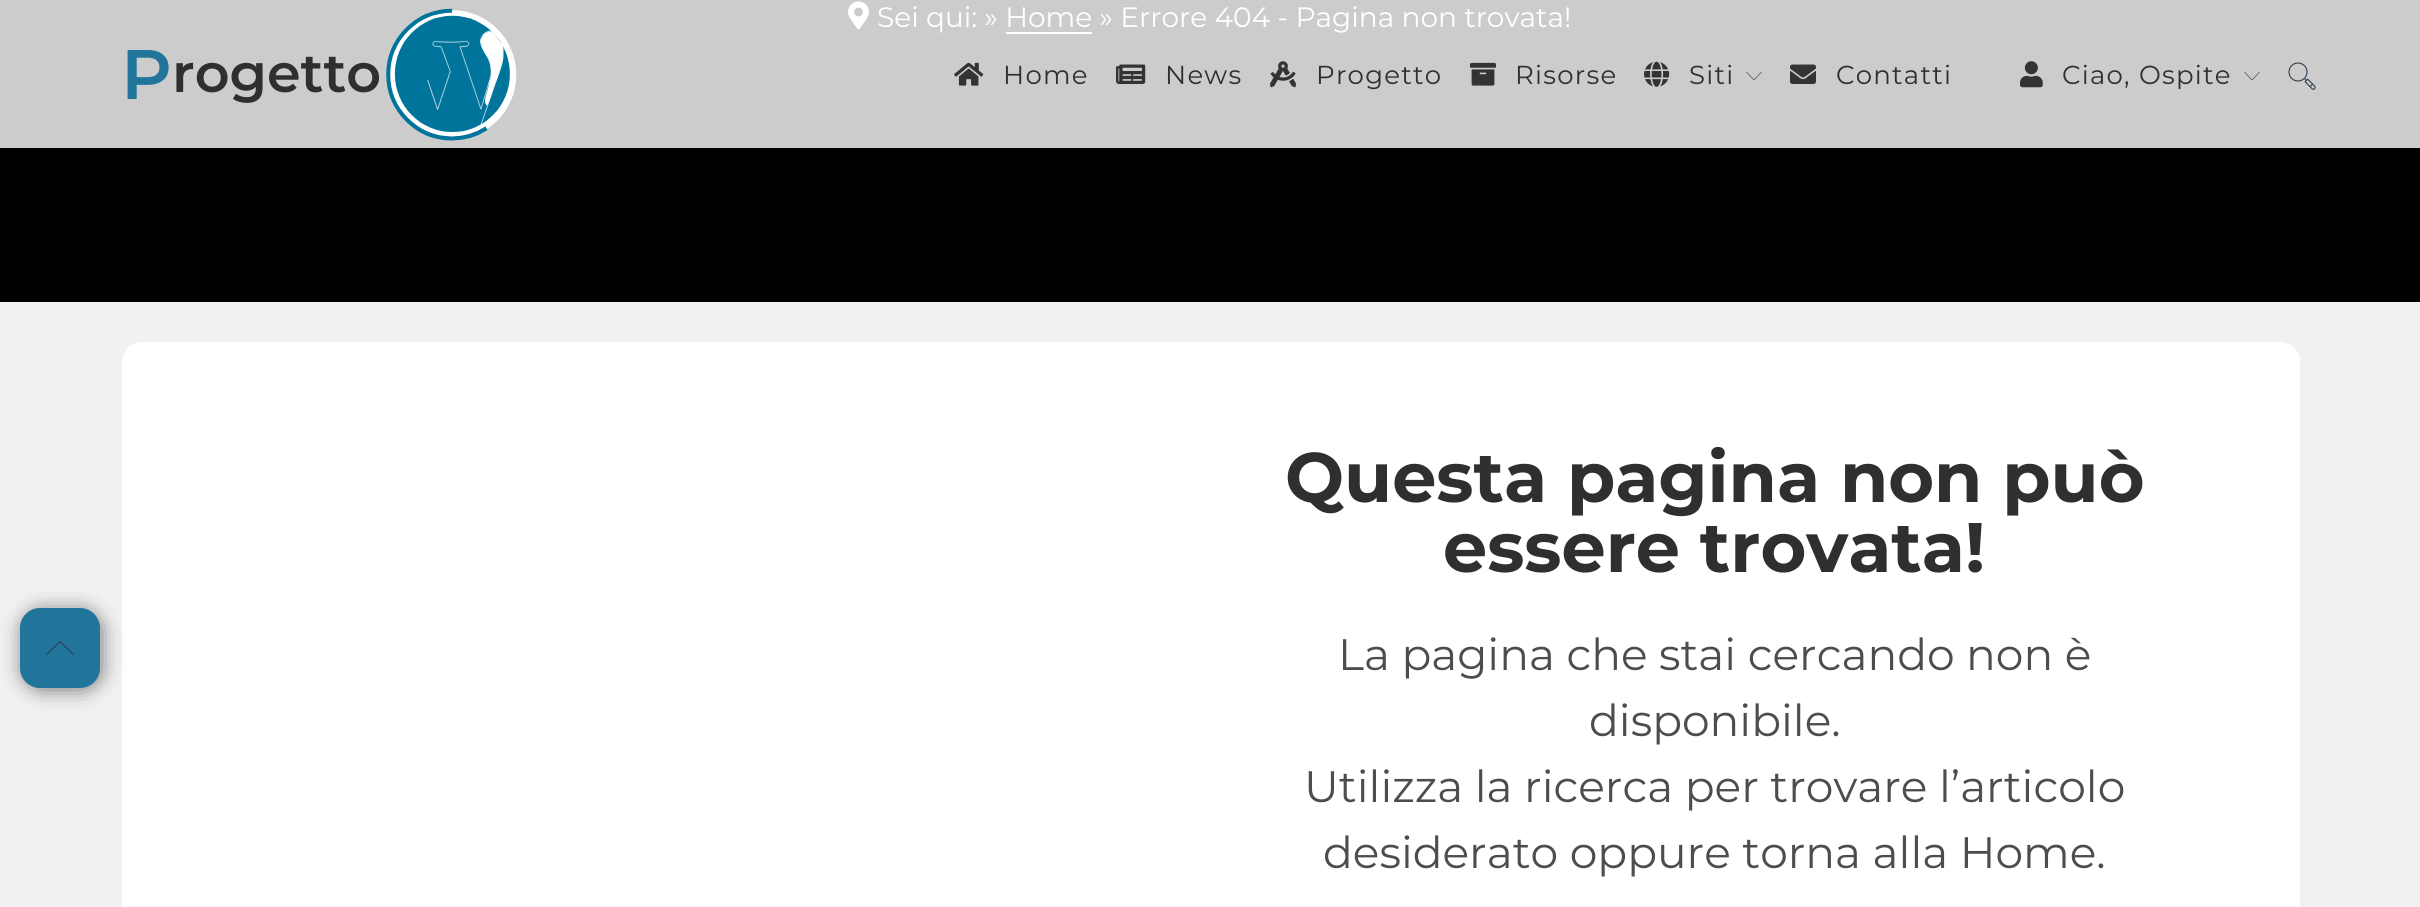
#include <cairo.h>
#include <math.h>
#include <stddef.h>


static void rgb(cairo_t *cr, int r, int g, int b)
{
	cairo_set_source_rgb(cr, r / 255.0, g / 255.0, b / 255.0);
}

static void face(cairo_t *cr, const char *family, double size, int italic, int bold)
{
	cairo_select_font_face(cr, family, italic ? CAIRO_FONT_SLANT_ITALIC : CAIRO_FONT_SLANT_NORMAL,
		bold ? CAIRO_FONT_WEIGHT_BOLD : CAIRO_FONT_WEIGHT_NORMAL);
	cairo_set_font_size(cr, size);
}

static void label(cairo_t *cr, double x, double y, const char *s)
{
	cairo_move_to(cr, x, y);
	cairo_show_text(cr, s);
}

static void tracked(cairo_t *cr, double x, double y, const char *s, double letter, double word)
{
	cairo_move_to(cr, x, y);
	while (*s) {
		char ch[5] = {0};
		int n = 0;
		do ch[n++] = *s++; while ((*s & 0xC0) == 0x80);
		cairo_show_text(cr, ch);
		cairo_rel_move_to(cr, letter + word * (*ch == ' '), 0);
	}
}

static void rect(cairo_t *cr, double x, double y, double w, double h)
{
	cairo_rectangle(cr, x, y, w, h);
	cairo_fill(cr);
}

static void rrect(cairo_t *cr, double x, double y, double w, double h, double r)
{
	cairo_new_sub_path(cr);
	cairo_arc(cr, x + w - r, y + h - r, r, 0, M_PI / 2);
	cairo_arc(cr, x + r, y + h - r, r, M_PI / 2, M_PI);
	cairo_arc(cr, x + r, y + r, r, M_PI, 1.5 * M_PI);
	cairo_arc(cr, x + w - r, y + r, r, 1.5 * M_PI, 2 * M_PI);
	cairo_close_path(cr);
}

static void soft_shadow(cairo_t *cr, double x, double y, double w, double h, double r, double blur, double alpha)
{
	cairo_push_group_with_content(cr, CAIRO_CONTENT_ALPHA);
	cairo_set_operator(cr, CAIRO_OPERATOR_SOURCE);
	for (int i = 15; i >= -15 && fmin(w, h) + blur * i / 3 > 0; i -= 2) {
		double e = blur * i / 6;
		cairo_set_source_rgba(cr, 0, 0, 0, alpha * erfc((i - 1) / 8.5) / 2);
		rrect(cr, x - e, y - e, w + 2 * e, h + 2 * e, fmax(0, fmin(r + e + blur * .6, fmin(w, h) / 2 + e)));
		cairo_fill(cr);
	}
	cairo_pattern_t *soft = cairo_pop_group(cr);
	cairo_mask(cr, soft);
	cairo_pattern_destroy(soft);
}

static void image(cairo_t *cr, const char *path, double x, double y, double w, double h)
{
	cairo_surface_t *image = cairo_image_surface_create_from_png(path);
	cairo_save(cr);
	cairo_set_source_surface(cr, image, x, y);
	cairo_rectangle(cr, x, y, w, h);
	cairo_fill(cr);
	cairo_restore(cr);
	cairo_surface_destroy(image);
}

static void draw(cairo_t *cr) {
	rgb(cr, 241, 241, 241);
	cairo_paint(cr);
	rgb(cr, 255, 255, 255);
	rrect(cr, 122, 342, 2178, 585, 20);
	cairo_fill(cr);
	rgb(cr, 0, 0, 0);
	soft_shadow(cr, 22, 610, 80, 80, 20, 10, 0.5);
	rgb(cr, 33, 117, 155);
	rrect(cr, 20, 608, 80, 80, 20);
	cairo_fill(cr);
	cairo_new_path(cr);
	cairo_move_to(cr, 46.5, 654.5);
	cairo_line_to(cr, 60, 641.5);
	cairo_line_to(cr, 73.5, 654.5);
	rgb(cr, 45, 62, 80);
	cairo_set_line_width(cr, 1.1);
	cairo_stroke(cr);
	rgb(cr, 0, 0, 0);
	rect(cr, 0, 148, 2420, 154);
	rgb(cr, 204, 204, 204);
	rect(cr, 0, 0, 2420, 148);
	image(cr, "image0.png", 848, 1, 21, 29);
	face(cr, "Montserrat", 28, 0, 0);
	rgb(cr, 255, 255, 255);
	label(cr, 877, 27, "Sei qui: » Home » Errore 404 - Pagina non trovata!");
	rect(cr, 1006, 32, 86, 2);
	face(cr, "Montserrat", 70, 0, 1);
	rgb(cr, 47, 47, 47);
	label(cr, 1285, 502, "Questa pagina non può");
	label(cr, 1443, 572, "essere trovata!");
	face(cr, "Montserrat", 44, 0, 0);
	rgb(cr, 77, 77, 77);
	label(cr, 1338, 670, "La pagina che stai cercando non è");
	label(cr, 1589, 736, "disponibile.");
	label(cr, 1304, 802, "Utilizza la ricerca per trovare l’articolo");
	label(cr, 1323, 868, "desiderato oppure torna alla Home.");
	face(cr, "Montserrat SemiBold", 70, 0, 0);
	rgb(cr, 33, 117, 155);
	label(cr, 121, 99, "P");
	face(cr, "Montserrat SemiBold", 54, 0, 0);
	rgb(cr, 47, 47, 47);
	label(cr, 172, 92, "rogetto");
	image(cr, "image1.png", 386, 8, 131, 133);
	image(cr, "image2.png", 954, 62, 30, 24);
	face(cr, "Montserrat", 26, 0, 0);
	tracked(cr, 1003, 84, "Home", 1.25, 0);
	image(cr, "image3.png", 1116, 64, 30, 20);
	tracked(cr, 1165, 84, "News", 1.25, 0);
	image(cr, "image4.png", 1270, 61, 26, 27);
	tracked(cr, 1316, 84, "Progetto", 1.25, 0);
	image(cr, "image5.png", 1470, 62, 26, 24);
	tracked(cr, 1515, 84, "Risorse", 1.25, 0);
	image(cr, "image6.png", 1644, 61, 26, 26);
	tracked(cr, 1689, 84, "Siti", 1.25, 0);
	cairo_new_path(cr);
	cairo_move_to(cr, 1761.5, 72);
	cairo_line_to(cr, 1754, 80);
	cairo_line_to(cr, 1746.5, 72);
	rgb(cr, 45, 62, 80);
	cairo_set_line_width(cr, 0.6);
	cairo_stroke(cr);
	image(cr, "image7.png", 1790, 64, 26, 20);
	rgb(cr, 47, 47, 47);
	tracked(cr, 1836, 84, "Contatti", 1.25, 0);
	image(cr, "image8.png", 2020, 61, 23, 27);
	tracked(cr, 2062, 84, "Ciao, Ospite", 1.25, 0);
	cairo_new_path(cr);
	cairo_move_to(cr, 2259.5, 72);
	cairo_line_to(cr, 2252, 80);
	cairo_line_to(cr, 2244.5, 72);
	rgb(cr, 45, 62, 80);
	cairo_stroke(cr);
	image(cr, "image9.png", 2288, 62, 28, 28);
}

int main(void) {
	cairo_surface_t *surface = cairo_image_surface_create(CAIRO_FORMAT_RGB24, 2420, 907);
	cairo_t *cr = cairo_create(surface);
	cairo_font_options_t *options = cairo_font_options_create();
	cairo_font_options_set_hint_metrics(options, CAIRO_HINT_METRICS_OFF);
	cairo_font_options_set_hint_style(options, CAIRO_HINT_STYLE_NONE);
	cairo_set_font_options(cr, options);
	cairo_set_miter_limit(cr, 4);
	draw(cr);
	cairo_surface_write_to_png(surface, "render.png");
	cairo_font_options_destroy(options);
	cairo_destroy(cr);
	cairo_surface_destroy(surface);
	return 0;
}
